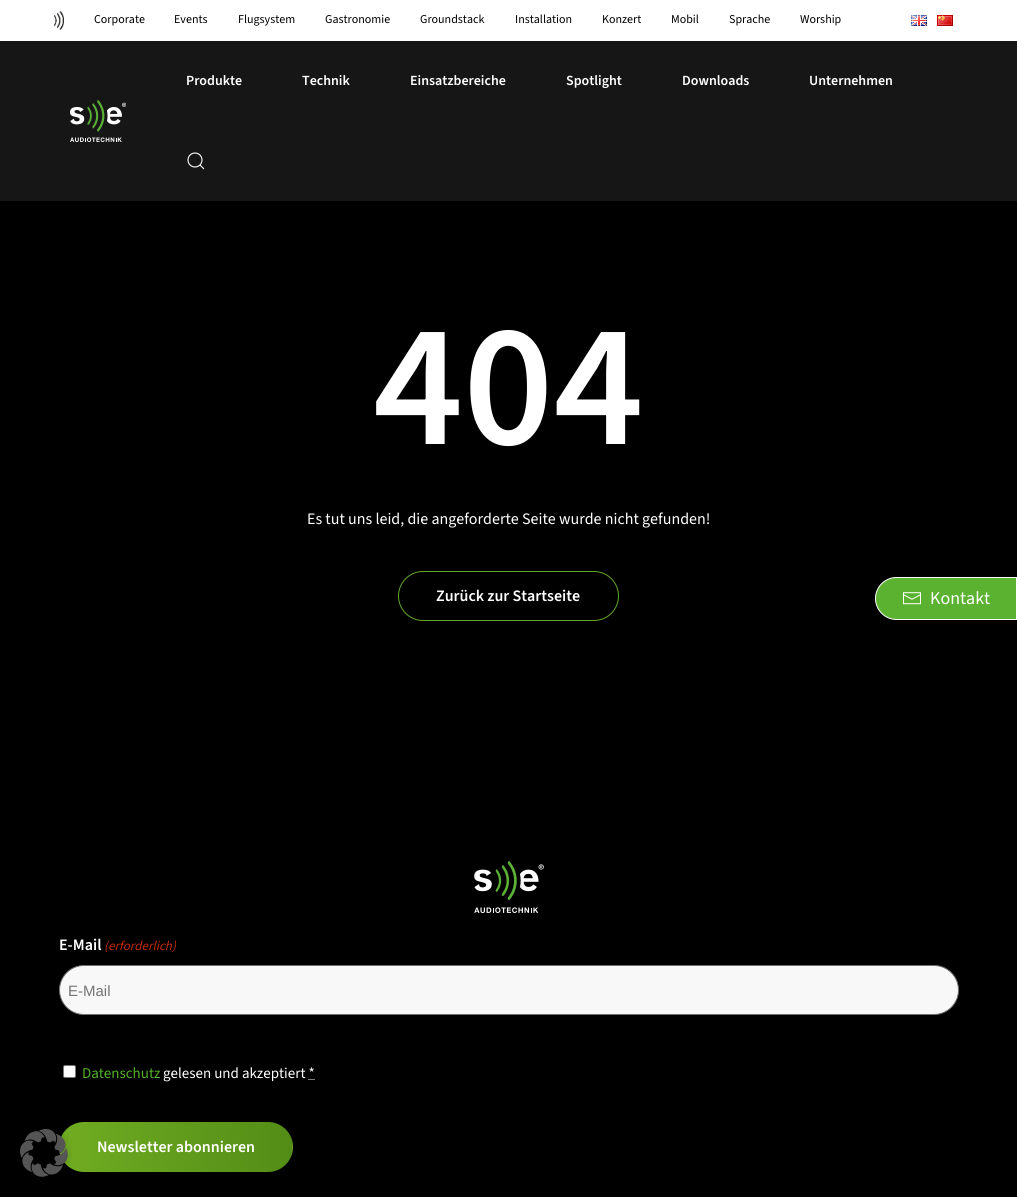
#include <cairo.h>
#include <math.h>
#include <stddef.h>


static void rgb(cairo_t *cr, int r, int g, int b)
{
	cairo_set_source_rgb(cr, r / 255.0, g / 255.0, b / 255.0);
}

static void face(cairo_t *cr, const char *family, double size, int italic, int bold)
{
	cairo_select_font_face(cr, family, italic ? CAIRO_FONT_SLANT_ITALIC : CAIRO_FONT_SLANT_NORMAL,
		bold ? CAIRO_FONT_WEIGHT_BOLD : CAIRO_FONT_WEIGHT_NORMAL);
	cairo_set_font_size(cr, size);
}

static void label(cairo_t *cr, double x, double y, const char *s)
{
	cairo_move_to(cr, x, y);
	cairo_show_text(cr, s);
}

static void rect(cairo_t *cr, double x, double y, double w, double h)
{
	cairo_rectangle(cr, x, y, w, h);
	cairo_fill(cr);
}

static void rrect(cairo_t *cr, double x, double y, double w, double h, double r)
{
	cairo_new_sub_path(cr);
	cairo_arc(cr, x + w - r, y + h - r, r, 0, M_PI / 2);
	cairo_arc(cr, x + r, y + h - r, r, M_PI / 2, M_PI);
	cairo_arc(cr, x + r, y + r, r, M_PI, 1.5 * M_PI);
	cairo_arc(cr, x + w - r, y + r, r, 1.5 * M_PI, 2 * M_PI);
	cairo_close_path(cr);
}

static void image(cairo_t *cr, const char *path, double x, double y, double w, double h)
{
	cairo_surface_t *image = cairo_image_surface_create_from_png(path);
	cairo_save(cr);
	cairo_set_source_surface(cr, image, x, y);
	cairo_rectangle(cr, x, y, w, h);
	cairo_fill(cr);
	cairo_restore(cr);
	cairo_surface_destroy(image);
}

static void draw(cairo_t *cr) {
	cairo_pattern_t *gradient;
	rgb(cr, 0, 0, 0);
	cairo_paint(cr);
	rgb(cr, 255, 255, 255);
	rect(cr, 0, 0, 1017, 41);
	image(cr, "image0.png", 54, 11, 10, 19);
	face(cr, "Source Sans 3", 12, 0, 0);
	rgb(cr, 0, 0, 0);
	label(cr, 94, 23, "Corporate");
	label(cr, 174, 23, "Events");
	label(cr, 238, 23, "Flugsystem");
	label(cr, 325, 23, "Gastronomie");
	label(cr, 420, 23, "Groundstack");
	label(cr, 515, 23, "Installation");
	label(cr, 602, 23, "Konzert");
	label(cr, 671, 23, "Mobil");
	label(cr, 729, 23, "Sprache");
	label(cr, 800, 23, "Worship");
	image(cr, "image1.png", 911, 15, 16, 11);
	image(cr, "image2.png", 937, 15, 16, 11);
	rgb(cr, 22, 22, 22);
	rect(cr, 0, 41, 1017, 160);
	face(cr, "Source Sans 3 SemiBold", 14, 0, 0);
	rgb(cr, 255, 255, 255);
	label(cr, 186, 85, "Produkte");
	label(cr, 302, 85, "Technik");
	label(cr, 410, 85, "Einsatzbereiche");
	label(cr, 566, 85, "Spotlight");
	label(cr, 682, 85, "Downloads");
	label(cr, 809, 85, "Unternehmen");
	cairo_new_path(cr);
	cairo_arc(cr, 195, 160, 7, 0, 2 * M_PI);
	cairo_set_line_width(cr, 1.1);
	cairo_stroke(cr);
	cairo_new_path(cr);
	cairo_move_to(cr, 200, 165);
	cairo_line_to(cr, 204, 169);
	cairo_close_path(cr);
	cairo_stroke(cr);
	image(cr, "image3.png", 70, 100, 56, 42);
	face(cr, "Source Sans 3 SemiBold", 176, 0, 0);
	label(cr, 373, 444, "404");
	face(cr, "Source Sans 3", 16, 0, 0);
	label(cr, 307, 524, "Es tut uns leid, die angeforderte Seite wurde nicht gefunden!");
	rrect(cr, 398.5, 571.5, 220, 49, 24.5);
	rgb(cr, 100, 165, 34);
	cairo_set_line_width(cr, 1);
	cairo_stroke(cr);
	face(cr, "Source Sans 3 SemiBold", 16, 0, 0);
	rgb(cr, 255, 255, 255);
	label(cr, 436, 601, "Zurück zur Startseite");
	image(cr, "image4.png", 474, 861, 70, 52);
	label(cr, 59, 950, "E-Mail");
	face(cr, "Source Sans 3", 13, 1, 0);
	rgb(cr, 192, 43, 10);
	label(cr, 104, 950, "(erforderlich)");
	rgb(cr, 248, 248, 248);
	rrect(cr, 59.5, 965.5, 899, 49, 24.5);
	cairo_fill_preserve(cr);
	rgb(cr, 112, 112, 112);
	cairo_stroke(cr);
	face(cr, "Liberation Sans", 15, 0, 0);
	rgb(cr, 117, 117, 117);
	label(cr, 68, 996, "E-Mail");
	rgb(cr, 255, 255, 255);
	rrect(cr, 63.5, 1065.5, 12, 12, 1.5);
	cairo_fill_preserve(cr);
	rgb(cr, 118, 118, 118);
	cairo_stroke(cr);
	face(cr, "Source Sans 3", 15, 0, 0);
	rgb(cr, 85, 178, 40);
	label(cr, 82, 1078, "Datenschutz");
	rgb(cr, 255, 255, 255);
	label(cr, 163, 1078, "gelesen und akzeptiert *");
	cairo_new_path(cr);
	cairo_move_to(cr, 308.5, 1079.5);
	cairo_line_to(cr, 309.5, 1079.5);
	cairo_move_to(cr, 310.5, 1079.5);
	cairo_line_to(cr, 311.5, 1079.5);
	cairo_move_to(cr, 312.5, 1079.5);
	cairo_line_to(cr, 313.5, 1079.5);
	cairo_move_to(cr, 314.5, 1079.5);
	cairo_line_to(cr, 315, 1079.5);
	cairo_stroke(cr);
	cairo_save(cr);
	rrect(cr, 59, 1122, 234, 50, 25);
	cairo_clip(cr);
	gradient = cairo_pattern_create_linear(60, 1147, 292, 1147);
	cairo_pattern_add_color_stop_rgba(gradient, 0, 0.443, 0.675, 0.133, 1);
	cairo_pattern_add_color_stop_rgba(gradient, 1, 0.325, 0.553, 0.09, 1);
	cairo_set_source(cr, gradient);
	cairo_pattern_destroy(gradient);
	rect(cr, 60, 1122, 232, 50);
	gradient = cairo_pattern_create_linear(292, 1147, 524, 1147);
	cairo_pattern_add_color_stop_rgba(gradient, 0, 0.443, 0.675, 0.133, 1);
	cairo_pattern_add_color_stop_rgba(gradient, 1, 0.325, 0.553, 0.09, 1);
	cairo_set_source(cr, gradient);
	cairo_pattern_destroy(gradient);
	rect(cr, 292, 1140, 1, 14);
	cairo_restore(cr);
	face(cr, "Source Sans 3 SemiBold", 16, 0, 0);
	label(cr, 97, 1152, "Newsletter abonnieren");
	rgb(cr, 90, 178, 48);
	cairo_new_path(cr);
	cairo_move_to(cr, 896.5, 577.5);
	cairo_line_to(cr, 1016.5, 577.5);
	cairo_line_to(cr, 1016.5, 619.5);
	cairo_line_to(cr, 896.5, 619.5);
	cairo_curve_to(cr, 885, 619.5, 875.5, 610, 875.5, 598.5);
	cairo_curve_to(cr, 875.5, 587, 885, 577.5, 896.5, 577.5);
	cairo_close_path(cr);
	cairo_fill_preserve(cr);
	rgb(cr, 255, 255, 255);
	cairo_stroke(cr);
	image(cr, "image5.png", 903, 592, 18, 13);
	face(cr, "Source Sans 3", 18, 0, 0);
	label(cr, 930, 604, "Kontakt");
	image(cr, "image6.png", 20, 1129, 52, 48);
}

int main(void) {
	cairo_surface_t *surface = cairo_image_surface_create(CAIRO_FORMAT_RGB24, 1017, 1197);
	cairo_t *cr = cairo_create(surface);
	cairo_font_options_t *options = cairo_font_options_create();
	cairo_font_options_set_hint_metrics(options, CAIRO_HINT_METRICS_OFF);
	cairo_font_options_set_hint_style(options, CAIRO_HINT_STYLE_NONE);
	cairo_set_font_options(cr, options);
	cairo_set_miter_limit(cr, 4);
	draw(cr);
	cairo_surface_write_to_png(surface, "render.png");
	cairo_font_options_destroy(options);
	cairo_destroy(cr);
	cairo_surface_destroy(surface);
	return 0;
}
